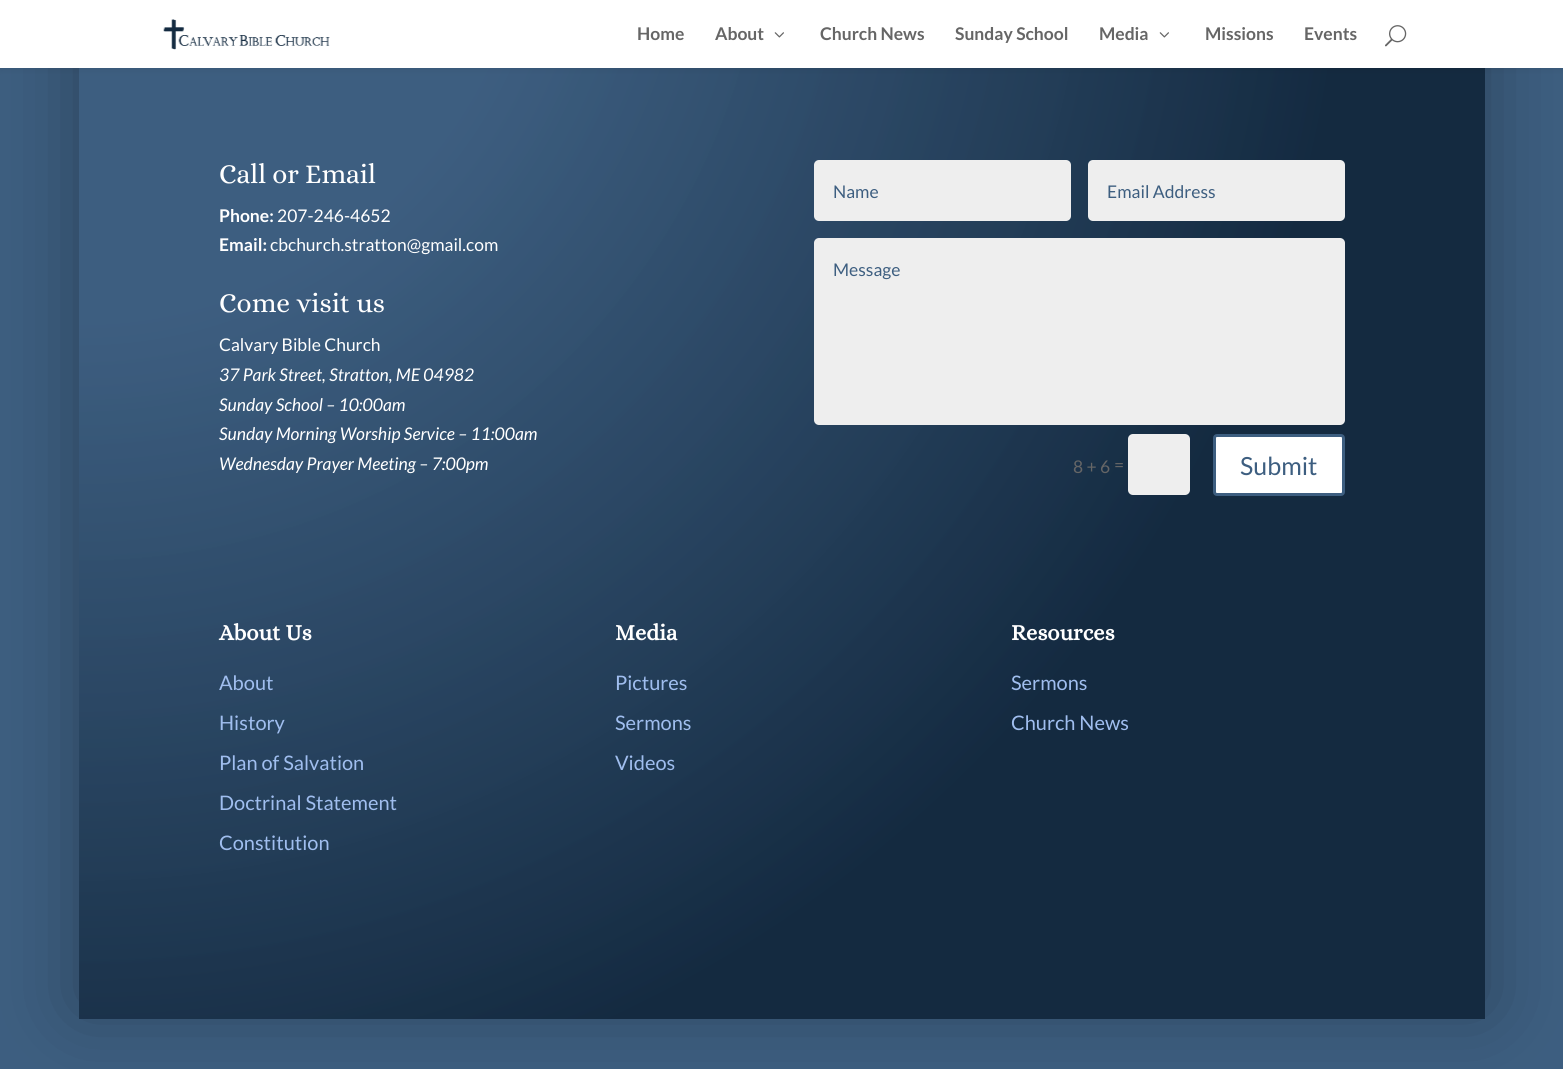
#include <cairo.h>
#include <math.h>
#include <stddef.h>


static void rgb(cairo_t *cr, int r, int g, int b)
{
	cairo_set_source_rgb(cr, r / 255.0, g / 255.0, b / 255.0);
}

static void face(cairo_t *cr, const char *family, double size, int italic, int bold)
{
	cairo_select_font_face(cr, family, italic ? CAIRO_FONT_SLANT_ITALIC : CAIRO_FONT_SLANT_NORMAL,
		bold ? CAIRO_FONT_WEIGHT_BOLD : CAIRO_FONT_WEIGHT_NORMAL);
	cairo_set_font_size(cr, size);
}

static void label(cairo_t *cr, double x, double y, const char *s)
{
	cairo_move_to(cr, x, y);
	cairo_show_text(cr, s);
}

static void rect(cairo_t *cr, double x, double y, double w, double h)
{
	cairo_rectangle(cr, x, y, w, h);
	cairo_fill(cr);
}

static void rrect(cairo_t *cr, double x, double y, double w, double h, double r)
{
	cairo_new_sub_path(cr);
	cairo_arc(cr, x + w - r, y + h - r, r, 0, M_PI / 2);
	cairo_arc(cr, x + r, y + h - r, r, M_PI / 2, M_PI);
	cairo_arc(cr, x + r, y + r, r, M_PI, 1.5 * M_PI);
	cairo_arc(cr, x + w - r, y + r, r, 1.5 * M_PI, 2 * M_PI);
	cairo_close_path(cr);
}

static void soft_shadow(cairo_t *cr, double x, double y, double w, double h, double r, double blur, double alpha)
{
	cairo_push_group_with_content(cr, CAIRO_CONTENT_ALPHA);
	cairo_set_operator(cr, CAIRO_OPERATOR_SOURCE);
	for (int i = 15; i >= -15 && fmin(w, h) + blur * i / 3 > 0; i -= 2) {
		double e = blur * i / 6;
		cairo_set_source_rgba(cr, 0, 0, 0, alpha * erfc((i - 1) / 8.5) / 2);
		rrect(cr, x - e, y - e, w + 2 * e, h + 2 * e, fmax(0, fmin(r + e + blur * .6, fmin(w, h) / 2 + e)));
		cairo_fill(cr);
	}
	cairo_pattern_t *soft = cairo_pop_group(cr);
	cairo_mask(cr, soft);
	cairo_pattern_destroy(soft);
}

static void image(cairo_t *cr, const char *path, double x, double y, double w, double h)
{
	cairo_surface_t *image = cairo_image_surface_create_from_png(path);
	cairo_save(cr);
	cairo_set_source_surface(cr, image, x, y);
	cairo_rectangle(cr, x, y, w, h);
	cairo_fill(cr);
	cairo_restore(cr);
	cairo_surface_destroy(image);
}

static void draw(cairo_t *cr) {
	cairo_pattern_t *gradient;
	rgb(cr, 61, 94, 128);
	cairo_paint(cr);
	cairo_save(cr);
	cairo_set_fill_rule(cr, CAIRO_FILL_RULE_EVEN_ODD);
	cairo_new_path(cr);
	cairo_move_to(cr, 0, 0);
	cairo_line_to(cr, 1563, 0);
	cairo_line_to(cr, 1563, 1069);
	cairo_line_to(cr, 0, 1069);
	cairo_close_path(cr);
	cairo_move_to(cr, 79, -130);
	cairo_line_to(cr, 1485, -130);
	cairo_line_to(cr, 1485, 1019);
	cairo_line_to(cr, 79, 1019);
	cairo_close_path(cr);
	cairo_clip(cr);
	rgb(cr, 0, 0, 0);
	soft_shadow(cr, 79, -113, 1406, 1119, 0, 37.5, 0.3);
	cairo_restore(cr);
	gradient = cairo_pattern_create_radial(79, -130, 0, 79, -130, 1816);
	cairo_pattern_add_color_stop_rgba(gradient, 0.25, 0.239, 0.369, 0.502, 0.92);
	cairo_pattern_add_color_stop_rgba(gradient, 0.7, 0.078, 0.165, 0.251, 1);
	cairo_set_source(cr, gradient);
	cairo_pattern_destroy(gradient);
	rect(cr, 79, 68, 1406, 951);
	rgb(cr, 0, 0, 0);
	soft_shadow(cr, 0, 0, 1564, 68, 0, 4.5, 0.1);
	rgb(cr, 255, 255, 255);
	rect(cr, 0, 0, 1563, 68);
	image(cr, "image0.png", 163, 19, 167, 31);
	face(cr, "Lato", 17.5, 0, 1);
	rgb(cr, 102, 102, 102);
	label(cr, 637, 40, "Home");
	label(cr, 715, 40, "About");
	image(cr, "image1.png", 774, 32, 10, 6);
	label(cr, 820, 40, "Church News");
	label(cr, 955, 40, "Sunday School");
	label(cr, 1099, 40, "Media");
	image(cr, "image1.png", 1159, 32, 10, 6);
	label(cr, 1205, 40, "Missions");
	label(cr, 1304, 40, "Events");
	image(cr, "image2.png", 1385, 25, 22, 22);
	face(cr, "Alice", 27.5, 0, 0);
	rgb(cr, 255, 255, 255);
	label(cr, 219, 183, "Call or Email");
	face(cr, "Lato", 17.5, 0, 1);
	label(cr, 219, 222, "Phone:");
	face(cr, "Lato", 17.5, 0, 0);
	label(cr, 277, 222, "207-246-4652");
	face(cr, "Lato", 17.5, 0, 1);
	label(cr, 219, 251, "Email:");
	face(cr, "Lato", 17.5, 0, 0);
	label(cr, 270, 251, "cbchurch.stratton@gmail.com");
	face(cr, "Alice", 27.5, 0, 0);
	label(cr, 219, 312, "Come visit us");
	face(cr, "Lato", 17.5, 0, 0);
	label(cr, 219, 351, "Calvary Bible Church");
	face(cr, "Lato", 17.5, 1, 0);
	label(cr, 219, 381, "37 Park Street, Stratton, ME 04982");
	label(cr, 219, 411, "Sunday School – 10:00am");
	label(cr, 219, 440, "Sunday Morning Worship Service – 11:00am");
	label(cr, 219, 470, "Wednesday Prayer Meeting – 7:00pm");
	rgb(cr, 238, 238, 238);
	rrect(cr, 814, 160, 257, 61, 5);
	cairo_fill(cr);
	face(cr, "Lato", 17.5, 0, 0);
	rgb(cr, 61, 94, 128);
	label(cr, 833, 198, "Name");
	rgb(cr, 238, 238, 238);
	rrect(cr, 1088, 160, 257, 61, 5);
	cairo_fill(cr);
	rgb(cr, 61, 94, 128);
	label(cr, 1107, 198, "Email Address");
	rgb(cr, 238, 238, 238);
	rrect(cr, 814, 238, 531, 187, 5);
	cairo_fill(cr);
	rgb(cr, 61, 94, 128);
	label(cr, 833, 276, "Message");
	rgb(cr, 102, 102, 102);
	label(cr, 1073, 473, "8 + 6");
	label(cr, 1114, 471, "=");
	rgb(cr, 238, 238, 238);
	rrect(cr, 1128, 434, 62, 61, 5);
	cairo_fill(cr);
	rgb(cr, 255, 255, 255);
	rrect(cr, 1214.5, 435.5, 129, 59, 2.5);
	cairo_fill_preserve(cr);
	rgb(cr, 61, 94, 128);
	cairo_set_line_width(cr, 3);
	cairo_stroke(cr);
	face(cr, "Lato", 25, 0, 0);
	label(cr, 1240, 475, "Submit");
	face(cr, "Alice", 22.5, 0, 1);
	rgb(cr, 255, 255, 255);
	label(cr, 219, 640, "About Us");
	face(cr, "Lato", 20, 0, 0);
	rgb(cr, 160, 190, 239);
	label(cr, 219, 690, "About");
	label(cr, 219, 730, "History");
	label(cr, 219, 770, "Plan of Salvation");
	label(cr, 219, 810, "Doctrinal Statement");
	label(cr, 219, 850, "Constitution");
	face(cr, "Alice", 22.5, 0, 1);
	rgb(cr, 255, 255, 255);
	label(cr, 615, 640, "Media");
	face(cr, "Lato", 20, 0, 0);
	rgb(cr, 160, 190, 239);
	label(cr, 615, 690, "Pictures");
	label(cr, 615, 730, "Sermons");
	label(cr, 615, 770, "Videos");
	face(cr, "Alice", 22.5, 0, 1);
	rgb(cr, 255, 255, 255);
	label(cr, 1011, 640, "Resources");
	face(cr, "Lato", 20, 0, 0);
	rgb(cr, 160, 190, 239);
	label(cr, 1011, 690, "Sermons");
	label(cr, 1011, 730, "Church News");
}

int main(void) {
	cairo_surface_t *surface = cairo_image_surface_create(CAIRO_FORMAT_RGB24, 1563, 1069);
	cairo_t *cr = cairo_create(surface);
	cairo_font_options_t *options = cairo_font_options_create();
	cairo_font_options_set_hint_metrics(options, CAIRO_HINT_METRICS_OFF);
	cairo_font_options_set_hint_style(options, CAIRO_HINT_STYLE_NONE);
	cairo_set_font_options(cr, options);
	cairo_set_miter_limit(cr, 4);
	draw(cr);
	cairo_surface_write_to_png(surface, "render.png");
	cairo_font_options_destroy(options);
	cairo_destroy(cr);
	cairo_surface_destroy(surface);
	return 0;
}
